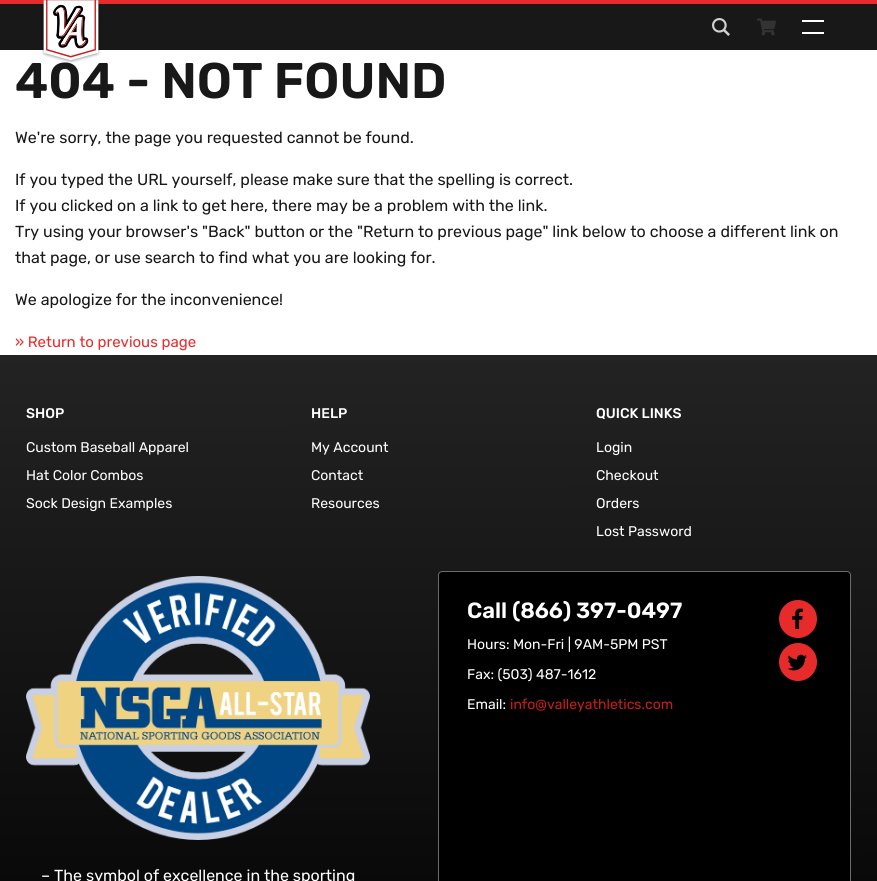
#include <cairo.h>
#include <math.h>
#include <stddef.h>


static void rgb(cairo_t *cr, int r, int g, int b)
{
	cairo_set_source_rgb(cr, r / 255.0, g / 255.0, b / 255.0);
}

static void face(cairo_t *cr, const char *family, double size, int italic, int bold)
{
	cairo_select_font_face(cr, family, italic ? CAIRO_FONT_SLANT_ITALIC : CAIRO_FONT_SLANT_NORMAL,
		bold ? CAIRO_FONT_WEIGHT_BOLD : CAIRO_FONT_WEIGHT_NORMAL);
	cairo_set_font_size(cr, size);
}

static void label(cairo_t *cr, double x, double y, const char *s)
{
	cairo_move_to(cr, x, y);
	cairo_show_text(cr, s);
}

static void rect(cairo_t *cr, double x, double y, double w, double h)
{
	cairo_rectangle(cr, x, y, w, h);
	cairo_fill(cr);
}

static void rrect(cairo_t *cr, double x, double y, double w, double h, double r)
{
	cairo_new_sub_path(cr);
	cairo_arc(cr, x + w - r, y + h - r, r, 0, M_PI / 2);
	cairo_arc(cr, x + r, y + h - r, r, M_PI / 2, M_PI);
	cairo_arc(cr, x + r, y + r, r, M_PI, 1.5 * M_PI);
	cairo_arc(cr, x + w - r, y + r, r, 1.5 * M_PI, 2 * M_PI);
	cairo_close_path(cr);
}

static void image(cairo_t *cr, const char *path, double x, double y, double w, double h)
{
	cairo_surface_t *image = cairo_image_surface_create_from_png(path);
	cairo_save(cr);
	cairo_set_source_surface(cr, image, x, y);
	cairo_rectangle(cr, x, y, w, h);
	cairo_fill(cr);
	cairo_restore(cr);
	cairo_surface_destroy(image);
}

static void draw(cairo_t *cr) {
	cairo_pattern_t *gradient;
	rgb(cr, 255, 255, 255);
	cairo_paint(cr);
	rgb(cr, 24, 24, 24);
	rect(cr, 0, 4, 877, 46);
	rgb(cr, 231, 43, 43);
	rect(cr, 0, 0, 877, 4);
	face(cr, "Rubik SemiBold", 50, 0, 0);
	rgb(cr, 24, 24, 24);
	label(cr, 15, 98, "404 - NOT FOUND");
	image(cr, "image0.png", 41, 0, 60, 63);
	image(cr, "image1.png", 712, 18, 18, 18);
	image(cr, "image2.png", 757, 18, 19, 18);
	rgb(cr, 255, 255, 255);
	rect(cr, 802, 20, 22, 2);
	rect(cr, 802, 32, 22, 2);
	face(cr, "Rubik", 16, 0, 0);
	rgb(cr, 24, 24, 24);
	label(cr, 15, 143, "We're sorry, the page you requested cannot be found.");
	label(cr, 15, 185, "If you typed the URL yourself, please make sure that the spelling is correct.");
	label(cr, 15, 211, "If you clicked on a link to get here, there may be a problem with the link.");
	label(cr, 15, 237, "Try using your browser's \"Back\" button or the \"Return to previous page\" link below to choose a different link on");
	label(cr, 15, 263, "that page, or use search to find what you are looking for.");
	label(cr, 15, 305, "We apologize for the inconvenience!");
	face(cr, "Rubik", 15, 0, 0);
	rgb(cr, 231, 43, 43);
	label(cr, 15, 347, "» Return to previous page");
	gradient = cairo_pattern_create_linear(438, 355, 439, 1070);
	cairo_pattern_add_color_stop_rgba(gradient, 0, 0.137, 0.137, 0.137, 1);
	cairo_pattern_add_color_stop_rgba(gradient, 1, 0, 0, 0, 1);
	cairo_set_source(cr, gradient);
	cairo_pattern_destroy(gradient);
	rect(cr, 0, 355, 877, 526);
	face(cr, "Rubik Medium", 14, 0, 0);
	rgb(cr, 255, 255, 255);
	label(cr, 26, 418, "SHOP");
	face(cr, "Rubik", 14, 0, 0);
	label(cr, 26, 452, "Custom Baseball Apparel");
	label(cr, 26, 480, "Hat Color Combos");
	label(cr, 26, 508, "Sock Design Examples");
	face(cr, "Rubik Medium", 14, 0, 0);
	label(cr, 311, 418, "HELP");
	face(cr, "Rubik", 14, 0, 0);
	label(cr, 311, 452, "My Account");
	label(cr, 311, 480, "Contact");
	label(cr, 311, 508, "Resources");
	face(cr, "Rubik Medium", 14, 0, 0);
	label(cr, 596, 418, "QUICK LINKS");
	face(cr, "Rubik", 14, 0, 0);
	label(cr, 596, 452, "Login");
	label(cr, 596, 480, "Checkout");
	label(cr, 596, 508, "Orders");
	label(cr, 596, 536, "Lost Password");
	rgb(cr, 0, 0, 0);
	rrect(cr, 438.5, 571.5, 412, 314, 3.5);
	cairo_fill_preserve(cr);
	rgb(cr, 105, 107, 109);
	cairo_set_line_width(cr, 1);
	cairo_stroke(cr);
	face(cr, "Rubik SemiBold", 22, 0, 0);
	rgb(cr, 255, 255, 255);
	label(cr, 467, 618, "Call (866) 397-0497");
	face(cr, "Rubik", 14, 0, 0);
	label(cr, 467, 649, "Hours: Mon-Fri | 9AM-5PM PST");
	label(cr, 467, 679, "Fax: (503) 487-1612");
	label(cr, 467, 709, "Email:");
	rgb(cr, 199, 29, 29);
	label(cr, 510, 709, "info@valleyathletics.com");
	rgb(cr, 231, 43, 43);
	cairo_new_path(cr);
	cairo_arc(cr, 798, 619, 19, 0, 2 * M_PI);
	cairo_fill(cr);
	image(cr, "image3.png", 792, 608, 11, 21);
	cairo_arc(cr, 798, 662, 19, 0, 2 * M_PI);
	cairo_fill(cr);
	image(cr, "image4.png", 787, 654, 20, 17);
	image(cr, "image5.png", 26, 576, 344, 264);
	face(cr, "Rubik", 16, 0, 0);
	rgb(cr, 255, 255, 255);
	label(cr, 41, 881, "– The symbol of excellence in the sporting");
}

int main(void) {
	cairo_surface_t *surface = cairo_image_surface_create(CAIRO_FORMAT_RGB24, 877, 881);
	cairo_t *cr = cairo_create(surface);
	cairo_font_options_t *options = cairo_font_options_create();
	cairo_font_options_set_hint_metrics(options, CAIRO_HINT_METRICS_OFF);
	cairo_font_options_set_hint_style(options, CAIRO_HINT_STYLE_NONE);
	cairo_set_font_options(cr, options);
	cairo_set_miter_limit(cr, 4);
	draw(cr);
	cairo_surface_write_to_png(surface, "render.png");
	cairo_font_options_destroy(options);
	cairo_destroy(cr);
	cairo_surface_destroy(surface);
	return 0;
}
